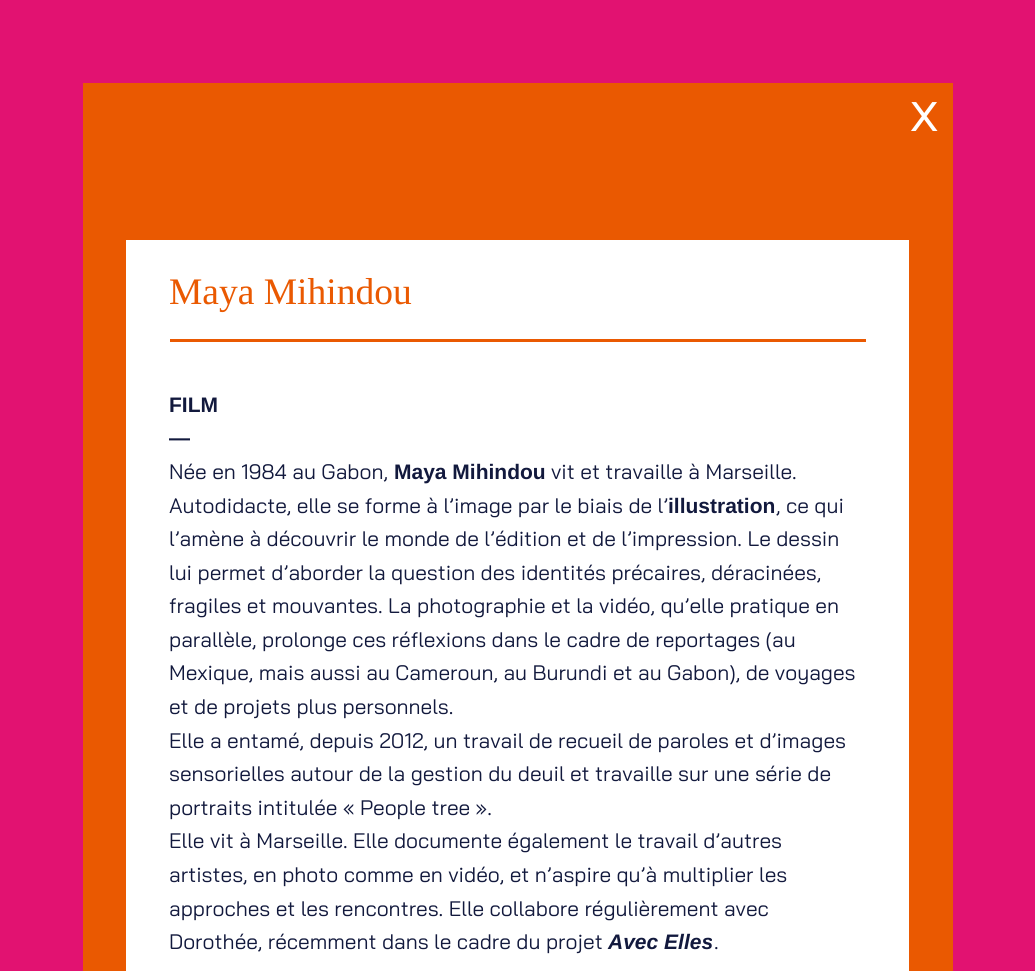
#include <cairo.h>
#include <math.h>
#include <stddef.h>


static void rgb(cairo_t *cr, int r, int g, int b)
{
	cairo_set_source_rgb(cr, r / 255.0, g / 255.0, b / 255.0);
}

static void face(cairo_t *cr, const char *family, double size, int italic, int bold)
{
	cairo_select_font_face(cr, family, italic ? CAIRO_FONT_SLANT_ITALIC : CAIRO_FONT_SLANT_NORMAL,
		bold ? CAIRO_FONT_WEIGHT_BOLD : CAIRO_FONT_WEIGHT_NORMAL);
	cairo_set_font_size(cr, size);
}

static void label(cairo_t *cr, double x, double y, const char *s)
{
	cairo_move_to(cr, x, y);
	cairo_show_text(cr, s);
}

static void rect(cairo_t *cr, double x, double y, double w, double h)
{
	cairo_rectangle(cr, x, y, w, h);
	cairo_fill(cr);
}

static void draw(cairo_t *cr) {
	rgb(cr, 226, 18, 113);
	cairo_paint(cr);
	rgb(cr, 234, 89, 1);
	rect(cr, 83, 83, 870, 888);
	face(cr, "Bai Jamjuree", 58, 0, 0);
	rgb(cr, 255, 255, 255);
	label(cr, 910, 131, "x");
	rect(cr, 126, 240, 783, 731);
	face(cr, "Liberation Serif", 37.5, 0, 0);
	rgb(cr, 234, 89, 1);
	label(cr, 169, 304, "Maya Mihindou");
	rect(cr, 170, 339, 696, 3);
	face(cr, "Liberation Sans", 21, 0, 1);
	rgb(cr, 18, 25, 61);
	label(cr, 169, 412, "FILM");
	label(cr, 169, 445, "—");
	face(cr, "Bai Jamjuree", 21, 0, 0);
	label(cr, 169, 479, "Née en 1984 au Gabon,");
	face(cr, "Liberation Sans", 21, 0, 1);
	label(cr, 394, 479, "Maya Mihindou");
	face(cr, "Bai Jamjuree", 21, 0, 0);
	label(cr, 551, 479, "vit et travaille à Marseille.");
	label(cr, 169, 513, "Autodidacte, elle se forme à l’image par le biais de l’");
	face(cr, "Liberation Sans", 21, 0, 1);
	label(cr, 668, 513, "illustration");
	face(cr, "Bai Jamjuree", 21, 0, 0);
	label(cr, 776, 513, ", ce qui");
	label(cr, 169, 546, "l’amène à découvrir le monde de l’édition et de l’impression. Le dessin");
	label(cr, 169, 580, "lui permet d’aborder la question des identités précaires, déracinées,");
	label(cr, 169, 613, "fragiles et mouvantes. La photographie et la vidéo, qu’elle pratique en");
	label(cr, 169, 647, "parallèle, prolonge ces réflexions dans le cadre de reportages (au");
	label(cr, 169, 680, "Mexique, mais aussi au Cameroun, au Burundi et au Gabon), de voyages");
	label(cr, 169, 714, "et de projets plus personnels.");
	label(cr, 169, 748, "Elle a entamé, depuis 2012, un travail de recueil de paroles et d’images");
	label(cr, 169, 781, "sensorielles autour de la gestion du deuil et travaille sur une série de");
	label(cr, 169, 815, "portraits intitulée « People tree ».");
	label(cr, 169, 848, "Elle vit à Marseille. Elle documente également le travail d’autres");
	label(cr, 169, 882, "artistes, en photo comme en vidéo, et n’aspire qu’à multiplier les");
	label(cr, 169, 916, "approches et les rencontres. Elle collabore régulièrement avec");
	label(cr, 169, 949, "Dorothée, récemment dans le cadre du projet");
	face(cr, "Liberation Sans", 21, 1, 1);
	label(cr, 608, 949, "Avec Elles");
	face(cr, "Bai Jamjuree", 21, 0, 0);
	label(cr, 714, 949, ".");
}

int main(void) {
	cairo_surface_t *surface = cairo_image_surface_create(CAIRO_FORMAT_RGB24, 1035, 971);
	cairo_t *cr = cairo_create(surface);
	cairo_font_options_t *options = cairo_font_options_create();
	cairo_font_options_set_hint_metrics(options, CAIRO_HINT_METRICS_OFF);
	cairo_font_options_set_hint_style(options, CAIRO_HINT_STYLE_NONE);
	cairo_set_font_options(cr, options);
	cairo_set_miter_limit(cr, 4);
	draw(cr);
	cairo_surface_write_to_png(surface, "render.png");
	cairo_font_options_destroy(options);
	cairo_destroy(cr);
	cairo_surface_destroy(surface);
	return 0;
}
